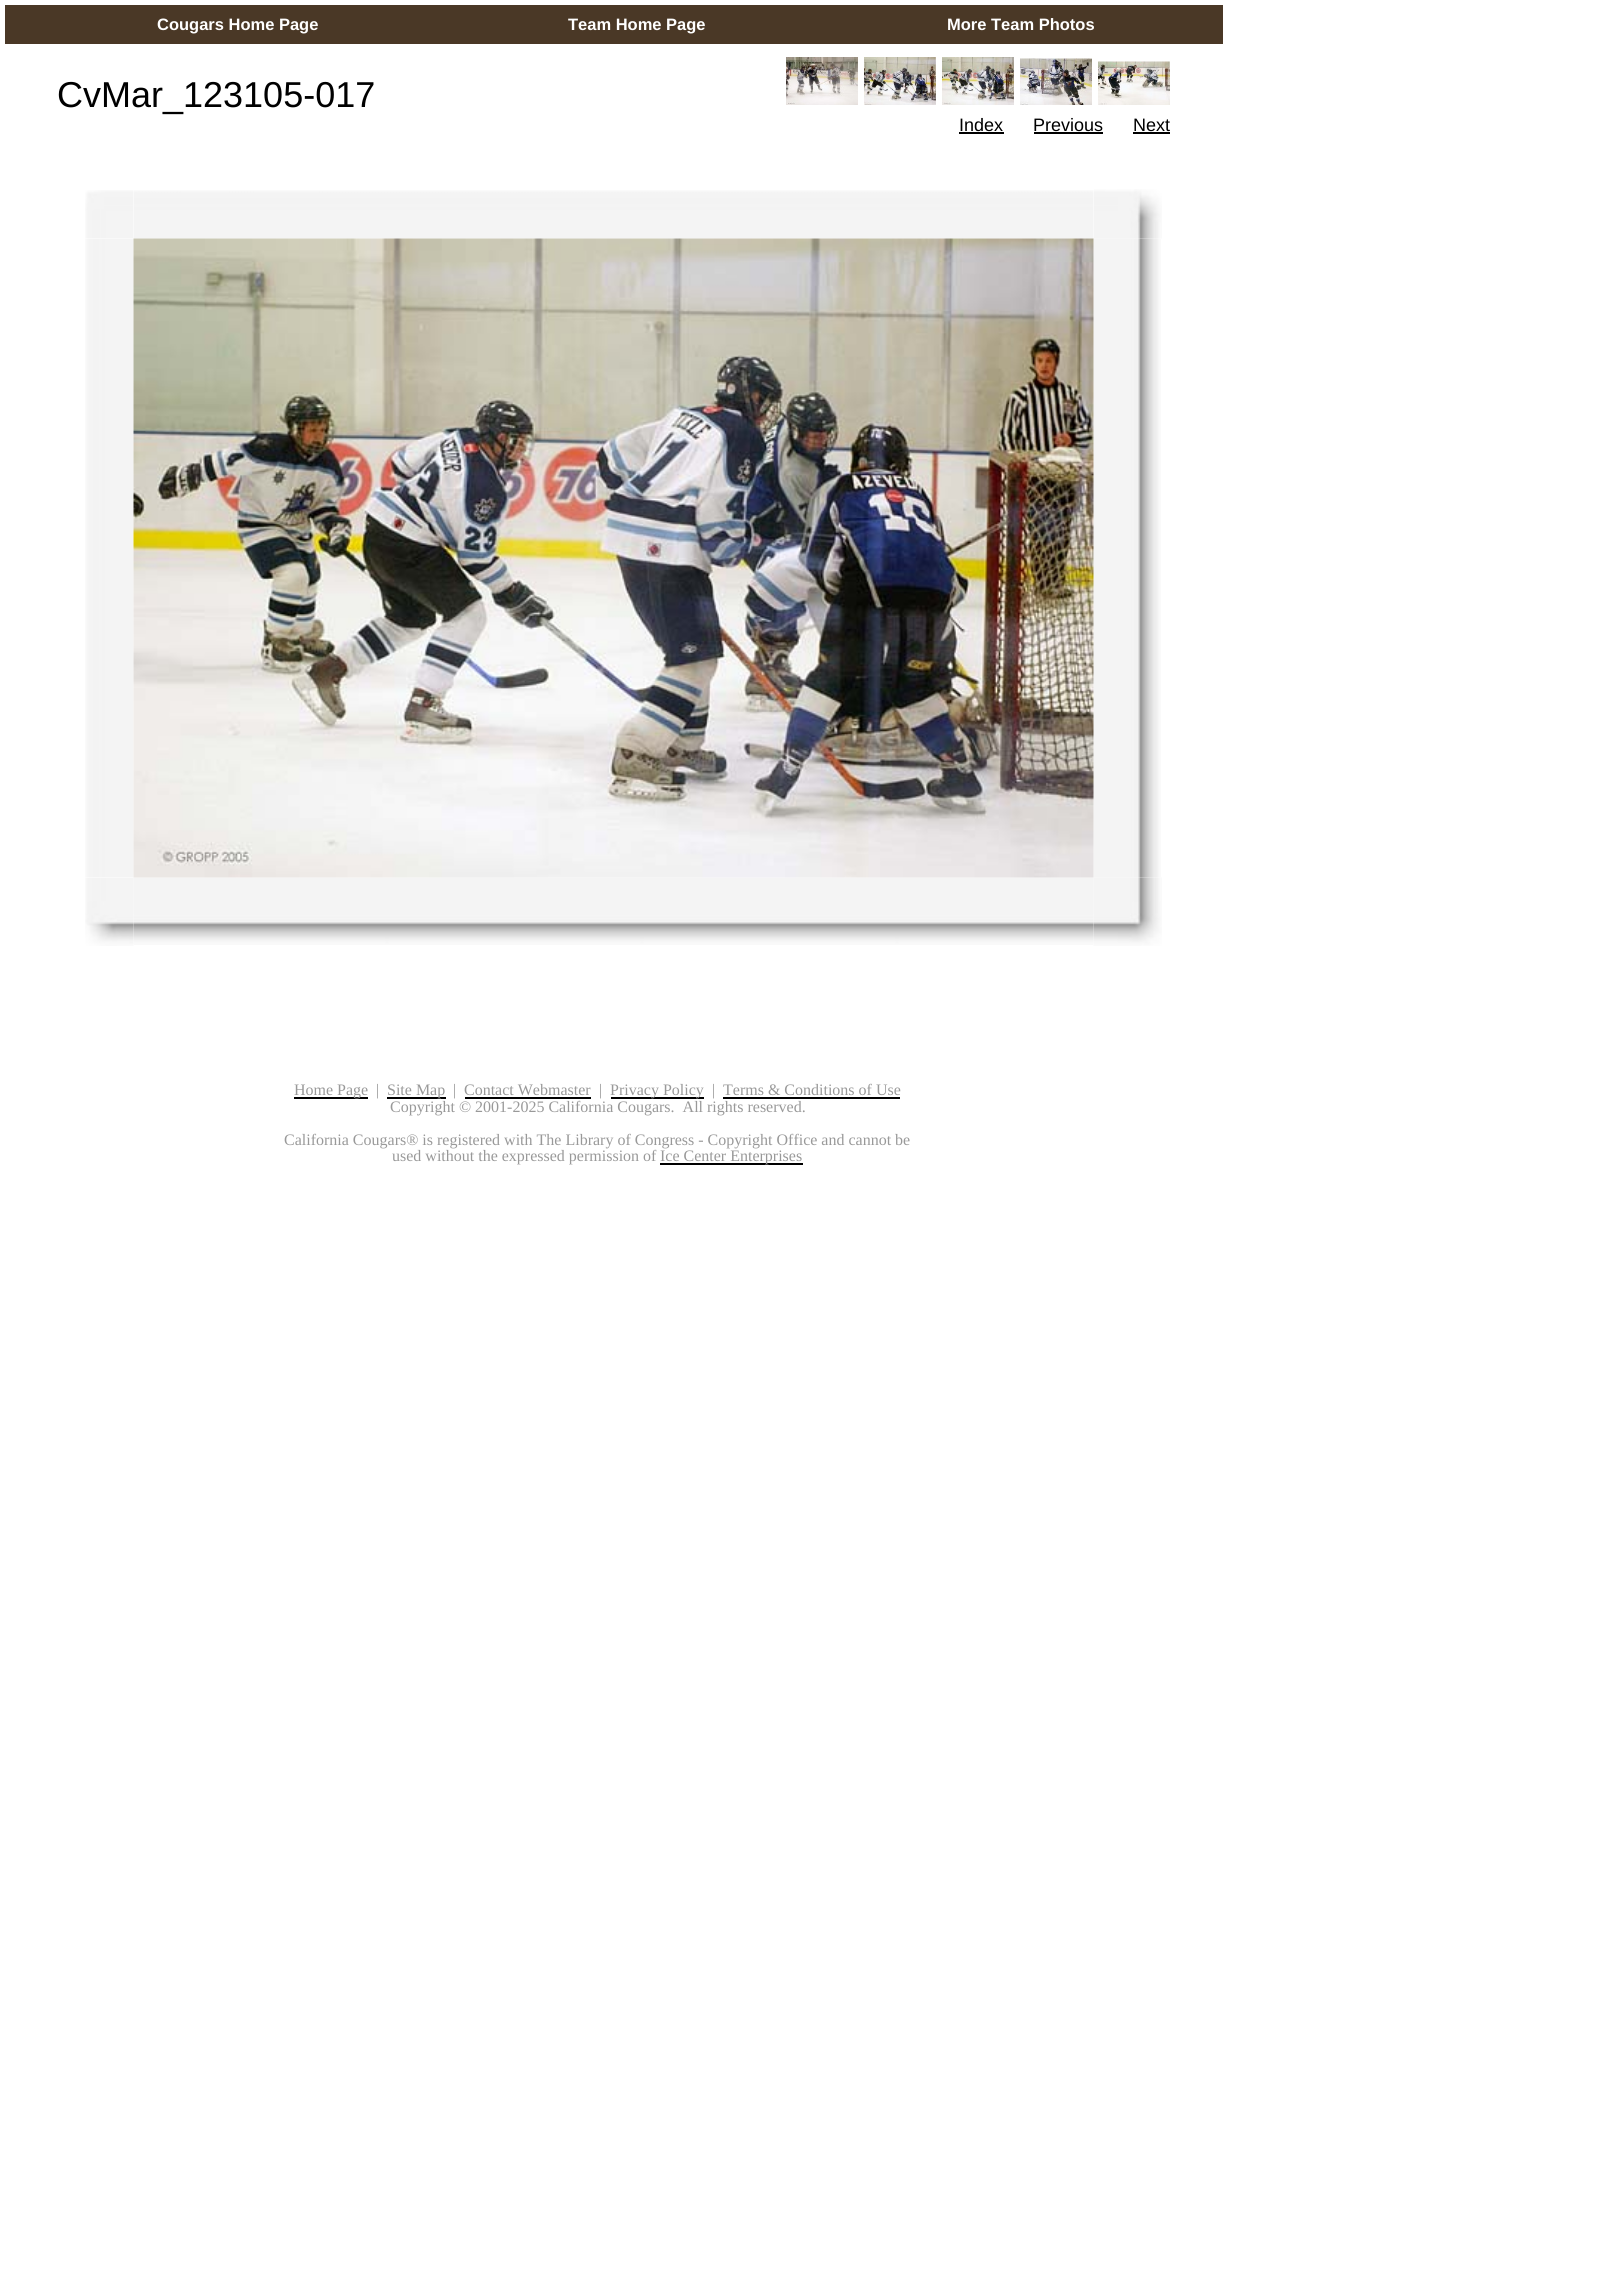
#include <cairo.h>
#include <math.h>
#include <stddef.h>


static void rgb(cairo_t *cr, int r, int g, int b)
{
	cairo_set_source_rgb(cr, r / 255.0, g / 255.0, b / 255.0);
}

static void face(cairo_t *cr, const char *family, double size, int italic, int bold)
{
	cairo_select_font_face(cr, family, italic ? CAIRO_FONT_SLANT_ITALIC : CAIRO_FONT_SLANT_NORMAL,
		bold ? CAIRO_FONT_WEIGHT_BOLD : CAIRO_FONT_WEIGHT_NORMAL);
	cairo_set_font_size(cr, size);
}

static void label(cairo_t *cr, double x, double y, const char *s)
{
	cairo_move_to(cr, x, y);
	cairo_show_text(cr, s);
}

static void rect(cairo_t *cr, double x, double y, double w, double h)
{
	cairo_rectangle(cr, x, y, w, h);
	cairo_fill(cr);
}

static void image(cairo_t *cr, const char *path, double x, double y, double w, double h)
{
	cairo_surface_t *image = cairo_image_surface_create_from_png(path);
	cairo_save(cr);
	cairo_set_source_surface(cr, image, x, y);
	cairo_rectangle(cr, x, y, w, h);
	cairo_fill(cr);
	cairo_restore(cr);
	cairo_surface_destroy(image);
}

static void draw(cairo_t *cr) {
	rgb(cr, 255, 255, 255);
	cairo_paint(cr);
	rgb(cr, 74, 56, 38);
	rect(cr, 5, 5, 1218, 39);
	face(cr, "Liberation Sans", 16.5, 0, 1);
	rgb(cr, 255, 255, 255);
	label(cr, 157, 30, "Cougars Home Page");
	label(cr, 568, 30, "Team Home Page");
	label(cr, 947, 30, "More Team Photos");
	face(cr, "Liberation Sans", 36, 0, 0);
	rgb(cr, 0, 0, 0);
	label(cr, 57, 107, "CvMar_123105-017");
	image(cr, "image0.png", 786, 57, 72, 48);
	image(cr, "image1.png", 864, 57, 72, 48);
	image(cr, "image2.png", 942, 57, 72, 48);
	image(cr, "image3.png", 1020, 58, 72, 47);
	image(cr, "image4.png", 1098, 61, 72, 44);
	face(cr, "Liberation Sans", 18, 0, 0);
	label(cr, 959, 131, "Index");
	rect(cr, 959, 132, 45, 2);
	label(cr, 1033, 131, "Previous");
	rect(cr, 1034, 132, 69, 2);
	label(cr, 1133, 131, "Next");
	rect(cr, 1133, 132, 37, 2);
	image(cr, "image5.png", 85, 190, 49, 49);
	image(cr, "image6.png", 134, 190, 960, 49);
	image(cr, "image7.png", 1094, 189, 68, 50);
	image(cr, "image8.png", 85, 239, 49, 639);
	image(cr, "image10.png", 1093, 238, 68, 640);
	image(cr, "image11.png", 85, 878, 49, 68);
	image(cr, "image12.png", 133, 877, 961, 68);
	image(cr, "image13.png", 1093, 877, 69, 69);
	image(cr, "image9.png", 133, 238, 961, 640);
	rect(cr, 294, 1097, 74, 2);
	face(cr, "Liberation Serif", 16, 0, 0);
	rgb(cr, 153, 153, 153);
	label(cr, 294, 1095, "Home Page");
	label(cr, 376, 1095, "|");
	rgb(cr, 0, 0, 0);
	rect(cr, 387, 1097, 59, 2);
	rgb(cr, 153, 153, 153);
	label(cr, 387, 1095, "Site Map");
	label(cr, 453, 1095, "|");
	label(cr, 464, 1095, "Contact Webmaster");
	rgb(cr, 0, 0, 0);
	rect(cr, 465, 1097, 126, 2);
	rgb(cr, 153, 153, 153);
	label(cr, 599, 1095, "|");
	rgb(cr, 0, 0, 0);
	rect(cr, 611, 1097, 93, 2);
	rgb(cr, 153, 153, 153);
	label(cr, 610, 1095, "Privacy Policy");
	label(cr, 712, 1095, "|");
	label(cr, 723, 1095, "Terms & Conditions of Use");
	rgb(cr, 0, 0, 0);
	rect(cr, 723, 1097, 177, 2);
	rgb(cr, 153, 153, 153);
	label(cr, 390, 1112, "Copyright © 2001-2025 California Cougars.  All rights reserved.");
	label(cr, 284, 1145, "California Cougars® is registered with The Library of Congress - Copyright Office and cannot be");
	label(cr, 392, 1161, "used without the expressed permission of");
	rgb(cr, 0, 0, 0);
	rect(cr, 660, 1163, 143, 2);
	rgb(cr, 153, 153, 153);
	label(cr, 660, 1161, "Ice Center Enterprises");
}

int main(void) {
	cairo_surface_t *surface = cairo_image_surface_create(CAIRO_FORMAT_RGB24, 1597, 2279);
	cairo_t *cr = cairo_create(surface);
	cairo_font_options_t *options = cairo_font_options_create();
	cairo_font_options_set_hint_metrics(options, CAIRO_HINT_METRICS_OFF);
	cairo_font_options_set_hint_style(options, CAIRO_HINT_STYLE_NONE);
	cairo_set_font_options(cr, options);
	cairo_set_miter_limit(cr, 4);
	draw(cr);
	cairo_surface_write_to_png(surface, "render.png");
	cairo_font_options_destroy(options);
	cairo_destroy(cr);
	cairo_surface_destroy(surface);
	return 0;
}
